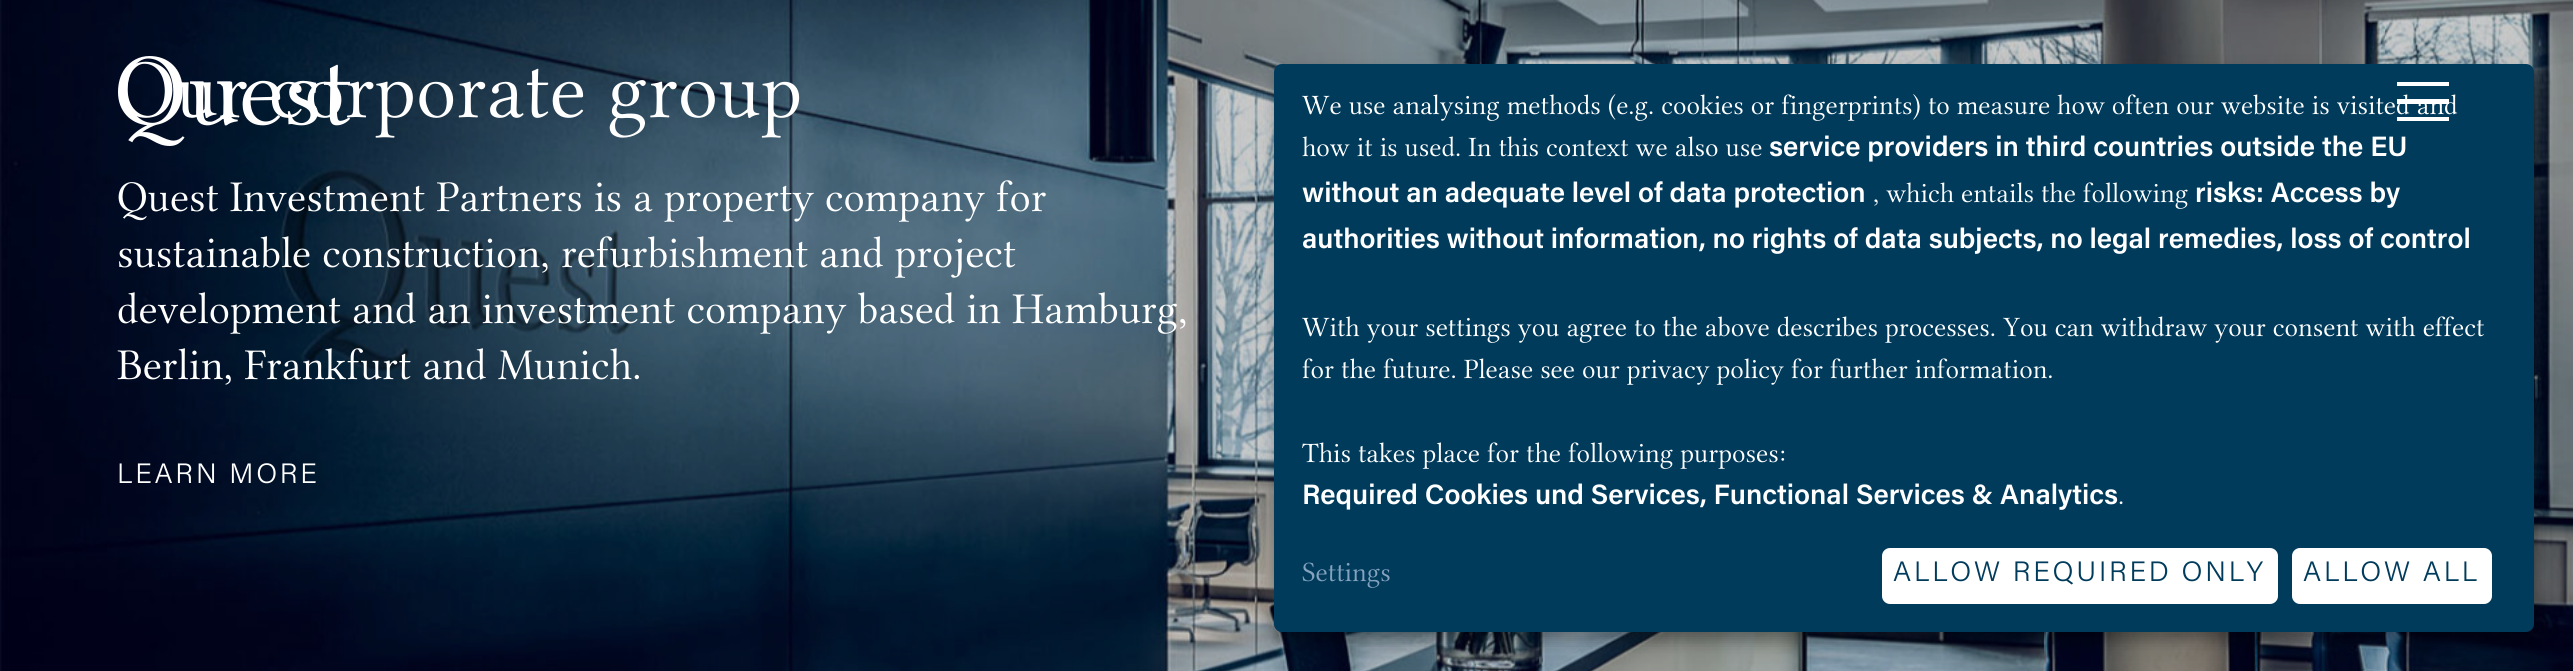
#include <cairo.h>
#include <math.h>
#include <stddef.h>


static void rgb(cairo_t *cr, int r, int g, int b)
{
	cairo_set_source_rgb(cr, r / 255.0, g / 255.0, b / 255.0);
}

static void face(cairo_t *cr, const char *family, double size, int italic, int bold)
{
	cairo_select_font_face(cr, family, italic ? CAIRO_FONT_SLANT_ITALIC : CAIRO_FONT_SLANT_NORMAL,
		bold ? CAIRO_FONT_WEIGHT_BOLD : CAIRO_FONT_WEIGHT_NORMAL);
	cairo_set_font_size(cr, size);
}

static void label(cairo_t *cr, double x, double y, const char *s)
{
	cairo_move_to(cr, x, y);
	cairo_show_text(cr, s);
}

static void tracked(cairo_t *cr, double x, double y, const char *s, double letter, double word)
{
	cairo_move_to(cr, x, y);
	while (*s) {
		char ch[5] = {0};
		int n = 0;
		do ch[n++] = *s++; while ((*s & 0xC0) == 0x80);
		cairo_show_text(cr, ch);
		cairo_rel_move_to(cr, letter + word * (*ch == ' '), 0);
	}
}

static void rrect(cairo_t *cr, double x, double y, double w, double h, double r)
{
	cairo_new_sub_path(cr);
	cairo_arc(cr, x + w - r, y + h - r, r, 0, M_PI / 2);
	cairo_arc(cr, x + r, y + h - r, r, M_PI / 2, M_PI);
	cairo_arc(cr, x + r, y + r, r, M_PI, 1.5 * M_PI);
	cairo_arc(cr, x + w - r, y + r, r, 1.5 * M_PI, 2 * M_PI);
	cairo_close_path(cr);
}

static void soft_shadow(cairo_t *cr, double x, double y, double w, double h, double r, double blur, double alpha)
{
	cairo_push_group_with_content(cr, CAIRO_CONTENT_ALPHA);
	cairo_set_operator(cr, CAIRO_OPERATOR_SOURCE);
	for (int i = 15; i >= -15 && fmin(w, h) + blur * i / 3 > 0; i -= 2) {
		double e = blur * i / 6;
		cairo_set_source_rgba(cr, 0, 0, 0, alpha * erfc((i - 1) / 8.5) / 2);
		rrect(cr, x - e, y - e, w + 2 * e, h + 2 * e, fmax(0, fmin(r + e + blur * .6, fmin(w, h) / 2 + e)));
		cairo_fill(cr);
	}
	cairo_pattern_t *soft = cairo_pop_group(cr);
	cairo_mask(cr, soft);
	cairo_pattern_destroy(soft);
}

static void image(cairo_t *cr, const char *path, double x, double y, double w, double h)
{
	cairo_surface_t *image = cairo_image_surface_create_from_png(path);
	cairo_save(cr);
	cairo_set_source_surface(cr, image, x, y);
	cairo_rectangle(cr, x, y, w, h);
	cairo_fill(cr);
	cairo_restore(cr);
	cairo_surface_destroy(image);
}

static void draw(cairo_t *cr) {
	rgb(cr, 255, 255, 255);
	cairo_paint(cr);
	image(cr, "image1.png", 0, 0, 2573, 671);
	face(cr, "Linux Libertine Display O", 84, 0, 0);
	rgb(cr, 255, 255, 255);
	label(cr, 117, 117, "Our corporate group");
	image(cr, "image0.png", 118, 56, 232, 90);
	rgb(cr, 0, 0, 0);
	soft_shadow(cr, 1284, 74, 1260, 568, 8, 10, 0.19);
	soft_shadow(cr, 1274, 72, 1260, 568, 8, 6, 0.2);
	rgb(cr, 0, 59, 92);
	rrect(cr, 1274, 64, 1260, 568, 8);
	cairo_fill(cr);
	rgb(cr, 255, 255, 255);
	cairo_new_path(cr);
	cairo_move_to(cr, 2397, 99);
	cairo_line_to(cr, 2449, 99);
	cairo_line_to(cr, 2449, 104);
	cairo_line_to(cr, 2397, 104);
	cairo_close_path(cr);
	cairo_move_to(cr, 2397, 82);
	cairo_line_to(cr, 2449, 82);
	cairo_line_to(cr, 2449, 86);
	cairo_line_to(cr, 2397, 86);
	cairo_close_path(cr);
	cairo_move_to(cr, 2397, 117);
	cairo_line_to(cr, 2449, 117);
	cairo_line_to(cr, 2449, 121);
	cairo_line_to(cr, 2397, 121);
	cairo_close_path(cr);
	cairo_fill(cr);
	face(cr, "Linux Libertine Display O", 44, 0, 0);
	label(cr, 117, 211, "Quest Investment Partners is a property company for");
	label(cr, 117, 267, "sustainable construction, refurbishment and project");
	label(cr, 117, 323, "development and an investment company based in Hamburg,");
	label(cr, 117, 379, "Berlin, Frankfurt and Munich.");
	face(cr, "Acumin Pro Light", 28, 0, 0);
	tracked(cr, 117, 483, "LEARN MORE", 2.75, 0);
	face(cr, "Linux Libertine Display O", 28, 0, 0);
	label(cr, 1302, 114, "We use analysing methods (e.g. cookies or fingerprints) to measure how often our website is visited and");
	label(cr, 1302, 156, "how it is used. In this context we also use");
	face(cr, "Acumin Pro SemiBold", 28, 0, 0);
	label(cr, 1769, 156, "service providers in third countries outside the EU");
	label(cr, 1302, 202, "without an adequate level of data protection");
	face(cr, "Linux Libertine Display O", 28, 0, 0);
	label(cr, 1873, 202, ", which entails the following");
	face(cr, "Acumin Pro SemiBold", 28, 0, 0);
	label(cr, 2195, 202, "risks: Access by");
	label(cr, 1302, 248, "authorities without information, no rights of data subjects, no legal remedies, loss of control");
	face(cr, "Linux Libertine Display O", 28, 0, 0);
	label(cr, 1302, 336, "With your settings you agree to the above describes processes. You can withdraw your consent with effect");
	label(cr, 1302, 378, "for the future. Please see our privacy policy for further information.");
	label(cr, 1302, 462, "This takes place for the following purposes:");
	face(cr, "Acumin Pro SemiBold", 28, 0, 0);
	label(cr, 1302, 504, "Required Cookies und Services, Functional Services & Analytics");
	face(cr, "Linux Libertine Display O", 28, 0, 0);
	label(cr, 2118, 504, ".");
	rgb(cr, 133, 163, 190);
	label(cr, 1302, 581, "Settings");
	rgb(cr, 255, 255, 255);
	rrect(cr, 1882, 548, 396, 56, 8);
	cairo_fill(cr);
	face(cr, "Acumin Pro Light", 28, 0, 0);
	rgb(cr, 0, 59, 92);
	tracked(cr, 1893, 581, "ALLOW REQUIRED ONLY", 2.75, 0);
	rgb(cr, 255, 255, 255);
	rrect(cr, 2292, 548, 200, 56, 8);
	cairo_fill(cr);
	rgb(cr, 0, 59, 92);
	tracked(cr, 2303, 581, "ALLOW ALL", 2.75, 0);
}

int main(void) {
	cairo_surface_t *surface = cairo_image_surface_create(CAIRO_FORMAT_RGB24, 2573, 671);
	cairo_t *cr = cairo_create(surface);
	cairo_font_options_t *options = cairo_font_options_create();
	cairo_font_options_set_hint_metrics(options, CAIRO_HINT_METRICS_OFF);
	cairo_font_options_set_hint_style(options, CAIRO_HINT_STYLE_NONE);
	cairo_set_font_options(cr, options);
	cairo_set_miter_limit(cr, 4);
	draw(cr);
	cairo_surface_write_to_png(surface, "render.png");
	cairo_font_options_destroy(options);
	cairo_destroy(cr);
	cairo_surface_destroy(surface);
	return 0;
}
